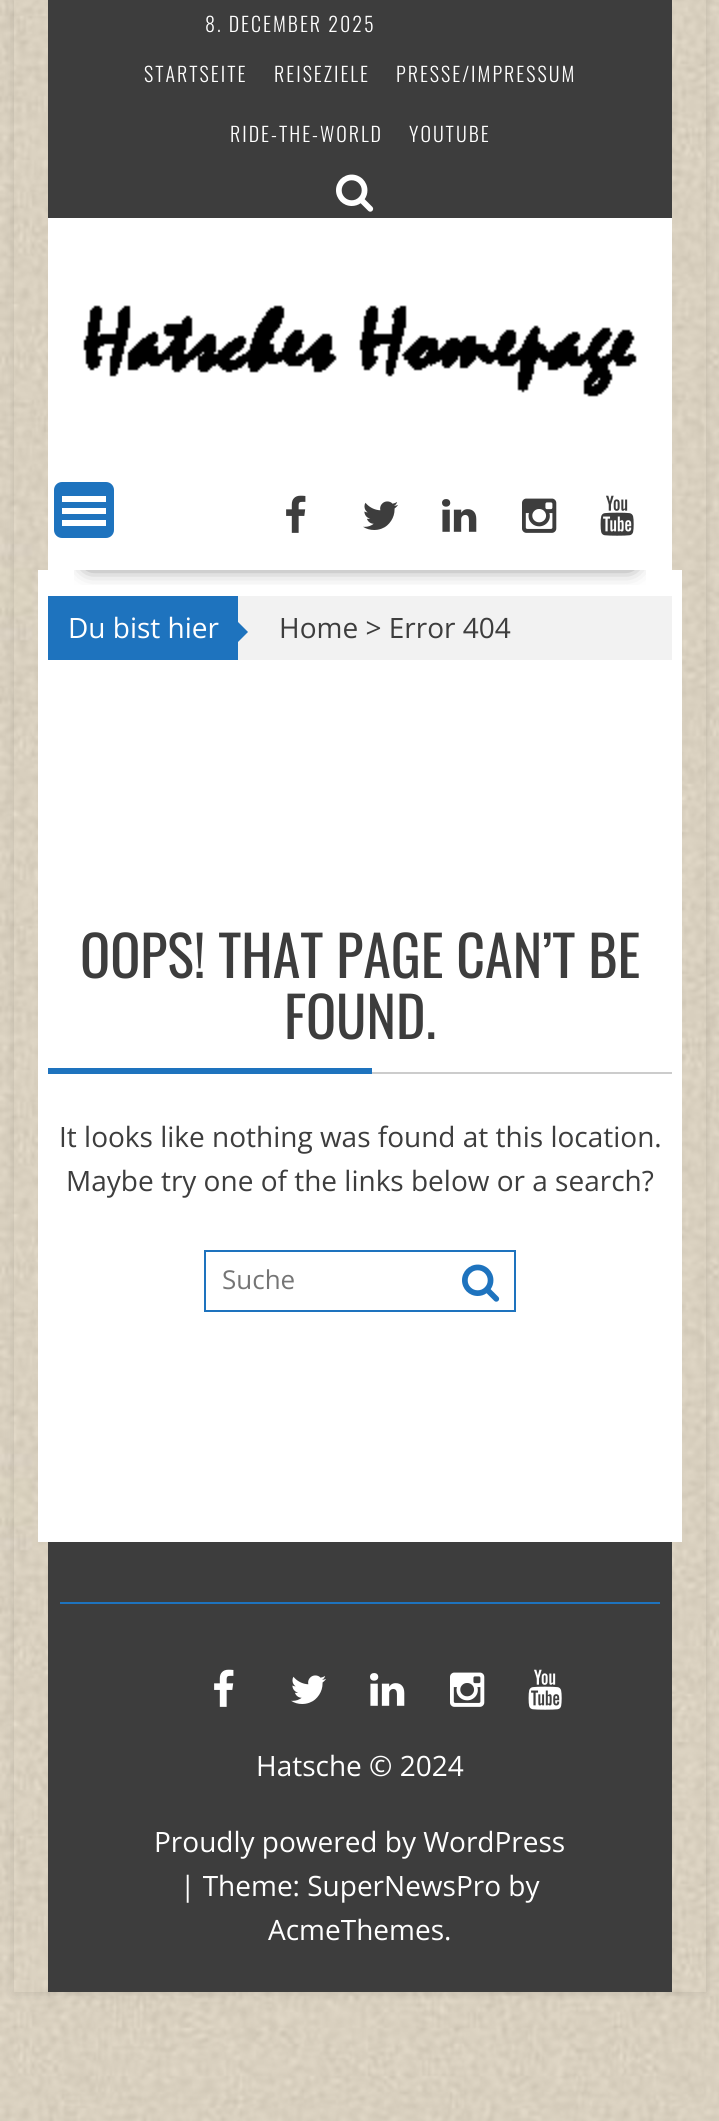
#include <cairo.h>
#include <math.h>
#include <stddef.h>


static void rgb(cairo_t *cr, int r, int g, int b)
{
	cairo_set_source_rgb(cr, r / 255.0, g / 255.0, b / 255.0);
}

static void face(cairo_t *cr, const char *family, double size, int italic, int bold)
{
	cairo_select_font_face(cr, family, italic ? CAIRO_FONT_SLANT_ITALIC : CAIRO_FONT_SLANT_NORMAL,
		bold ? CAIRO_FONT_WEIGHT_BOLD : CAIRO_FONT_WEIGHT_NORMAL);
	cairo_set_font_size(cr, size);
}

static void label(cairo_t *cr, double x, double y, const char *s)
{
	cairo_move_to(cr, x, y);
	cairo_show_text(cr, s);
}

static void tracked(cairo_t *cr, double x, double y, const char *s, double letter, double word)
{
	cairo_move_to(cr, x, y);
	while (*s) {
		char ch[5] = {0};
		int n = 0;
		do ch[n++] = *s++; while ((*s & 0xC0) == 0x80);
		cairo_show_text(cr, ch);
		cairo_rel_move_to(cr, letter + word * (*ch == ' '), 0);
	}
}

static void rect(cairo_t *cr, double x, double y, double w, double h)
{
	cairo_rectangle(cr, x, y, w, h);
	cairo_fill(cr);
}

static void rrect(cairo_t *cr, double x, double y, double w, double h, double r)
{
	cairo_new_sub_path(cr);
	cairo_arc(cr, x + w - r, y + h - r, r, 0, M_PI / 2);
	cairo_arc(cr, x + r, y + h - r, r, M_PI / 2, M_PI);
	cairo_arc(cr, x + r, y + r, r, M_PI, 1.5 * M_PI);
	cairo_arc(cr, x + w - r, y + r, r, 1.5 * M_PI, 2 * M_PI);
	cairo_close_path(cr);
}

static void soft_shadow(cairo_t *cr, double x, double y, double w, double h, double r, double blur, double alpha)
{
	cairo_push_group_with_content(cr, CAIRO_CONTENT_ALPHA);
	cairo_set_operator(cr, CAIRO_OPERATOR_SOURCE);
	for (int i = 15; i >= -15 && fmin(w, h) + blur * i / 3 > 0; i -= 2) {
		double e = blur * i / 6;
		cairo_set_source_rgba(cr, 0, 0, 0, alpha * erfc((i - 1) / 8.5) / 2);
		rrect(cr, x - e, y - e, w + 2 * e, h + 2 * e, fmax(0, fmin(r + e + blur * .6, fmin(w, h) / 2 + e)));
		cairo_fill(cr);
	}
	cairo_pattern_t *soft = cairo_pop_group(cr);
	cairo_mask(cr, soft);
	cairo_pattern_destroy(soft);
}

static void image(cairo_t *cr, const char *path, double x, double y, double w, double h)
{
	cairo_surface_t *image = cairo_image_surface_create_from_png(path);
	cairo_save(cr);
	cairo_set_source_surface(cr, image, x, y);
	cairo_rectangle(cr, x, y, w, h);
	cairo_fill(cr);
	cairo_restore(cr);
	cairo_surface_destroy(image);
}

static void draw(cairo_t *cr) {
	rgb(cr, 255, 255, 255);
	cairo_paint(cr);
	image(cr, "image0.png", 0, 0, 719, 2121);
	cairo_save(cr);
	cairo_set_fill_rule(cr, CAIRO_FILL_RULE_EVEN_ODD);
	cairo_new_path(cr);
	cairo_move_to(cr, 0, 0);
	cairo_line_to(cr, 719, 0);
	cairo_line_to(cr, 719, 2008);
	cairo_line_to(cr, 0, 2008);
	cairo_close_path(cr);
	cairo_move_to(cr, 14, 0);
	cairo_line_to(cr, 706, 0);
	cairo_line_to(cr, 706, 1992);
	cairo_line_to(cr, 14, 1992);
	cairo_close_path(cr);
	cairo_clip(cr);
	rgb(cr, 0, 0, 0);
	soft_shadow(cr, 14, 0, 692, 1992, 0, 5, 0.12);
	cairo_restore(cr);
	rgb(cr, 61, 61, 61);
	rect(cr, 48, 0, 624, 218);
	face(cr, "Oswald Light", 20, 0, 0);
	rgb(cr, 255, 255, 255);
	tracked(cr, 205, 32, "8. DECEMBER 2025", 2, 0);
	tracked(cr, 144, 82, "STARTSEITE", 2, 0);
	tracked(cr, 274, 82, "REISEZIELE", 2, 0);
	tracked(cr, 396, 82, "PRESSE/IMPRESSUM", 2, 0);
	tracked(cr, 230, 142, "RIDE-THE-WORLD", 2, 0);
	tracked(cr, 409, 142, "YOUTUBE", 2, 0);
	image(cr, "image1.png", 336, 174, 38, 38);
	rect(cr, 48, 218, 624, 352);
	image(cr, "image2.png", 83, 305, 554, 92);
	rect(cr, 38, 570, 644, 972);
	rgb(cr, 242, 242, 242);
	rect(cr, 238, 596, 434, 64);
	cairo_save(cr);
	cairo_rectangle(cr, 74, 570, 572, 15);
	cairo_clip(cr);
	rgb(cr, 0, 0, 0);
	soft_shadow(cr, 88, 540, 544, 24, 0, 11, 0.75);
	cairo_restore(cr);
	rgb(cr, 30, 115, 190);
	rrect(cr, 55, 483, 58, 54, 7);
	cairo_fill_preserve(cr);
	cairo_stroke(cr);
	rgb(cr, 255, 255, 255);
	rect(cr, 62, 520, 44, 6);
	rect(cr, 62, 508, 44, 6);
	rect(cr, 62, 496, 44, 6);
	image(cr, "image3.png", 286, 495, 20, 38);
	image(cr, "image4.png", 363, 501, 35, 29);
	image(cr, "image5.png", 442, 499, 35, 33);
	image(cr, "image6.png", 522, 498, 35, 35);
	image(cr, "image7.png", 600, 495, 34, 41);
	rgb(cr, 30, 115, 190);
	rect(cr, 48, 596, 190, 64);
	face(cr, "Open Sans", 28, 0, 0);
	rgb(cr, 255, 255, 255);
	label(cr, 68, 638, "Du bist hier");
	rgb(cr, 30, 115, 190);
	cairo_new_path(cr);
	cairo_move_to(cr, 238, 642);
	cairo_line_to(cr, 238, 622);
	cairo_line_to(cr, 248, 632);
	cairo_close_path(cr);
	cairo_fill(cr);
	rgb(cr, 61, 61, 61);
	label(cr, 279, 638, "Home > Error 404");
	rgb(cr, 204, 204, 204);
	rect(cr, 372, 1072, 300, 2);
	face(cr, "Oswald", 56, 0, 0);
	rgb(cr, 61, 61, 61);
	label(cr, 80, 978, "OOPS! THAT PAGE CAN’T BE");
	label(cr, 284, 1039, "FOUND.");
	rgb(cr, 30, 115, 190);
	rect(cr, 48, 1068, 324, 6);
	face(cr, "Open Sans", 28, 0, 0);
	rgb(cr, 61, 61, 61);
	label(cr, 59, 1147, "It looks like nothing was found at this location.");
	label(cr, 66, 1191, "Maybe try one of the links below or a search?");
	cairo_rectangle(cr, 205, 1251, 310, 60);
	rgb(cr, 30, 115, 190);
	cairo_stroke(cr);
	face(cr, "Open Sans", 26, 0, 0);
	rgb(cr, 117, 117, 117);
	label(cr, 222, 1289, "Suche");
	image(cr, "image8.png", 462, 1264, 38, 38);
	rgb(cr, 61, 61, 61);
	rect(cr, 48, 1542, 624, 450);
	rgb(cr, 30, 115, 190);
	rect(cr, 60, 1602, 600, 2);
	image(cr, "image9.png", 214, 1669, 20, 38);
	image(cr, "image10.png", 291, 1675, 35, 29);
	image(cr, "image11.png", 370, 1673, 35, 33);
	image(cr, "image12.png", 450, 1672, 35, 35);
	image(cr, "image13.png", 528, 1669, 34, 41);
	face(cr, "Open Sans", 28, 0, 0);
	rgb(cr, 255, 255, 255);
	label(cr, 256, 1776, "Hatsche © 2024");
	label(cr, 154, 1852, "Proudly powered by WordPress");
	label(cr, 180, 1896, "| Theme: SuperNewsPro by");
	label(cr, 268, 1940, "AcmeThemes.");
}

int main(void) {
	cairo_surface_t *surface = cairo_image_surface_create(CAIRO_FORMAT_RGB24, 719, 2121);
	cairo_t *cr = cairo_create(surface);
	cairo_font_options_t *options = cairo_font_options_create();
	cairo_font_options_set_hint_metrics(options, CAIRO_HINT_METRICS_OFF);
	cairo_font_options_set_hint_style(options, CAIRO_HINT_STYLE_NONE);
	cairo_set_font_options(cr, options);
	cairo_set_miter_limit(cr, 4);
	draw(cr);
	cairo_surface_write_to_png(surface, "render.png");
	cairo_font_options_destroy(options);
	cairo_destroy(cr);
	cairo_surface_destroy(surface);
	return 0;
}
